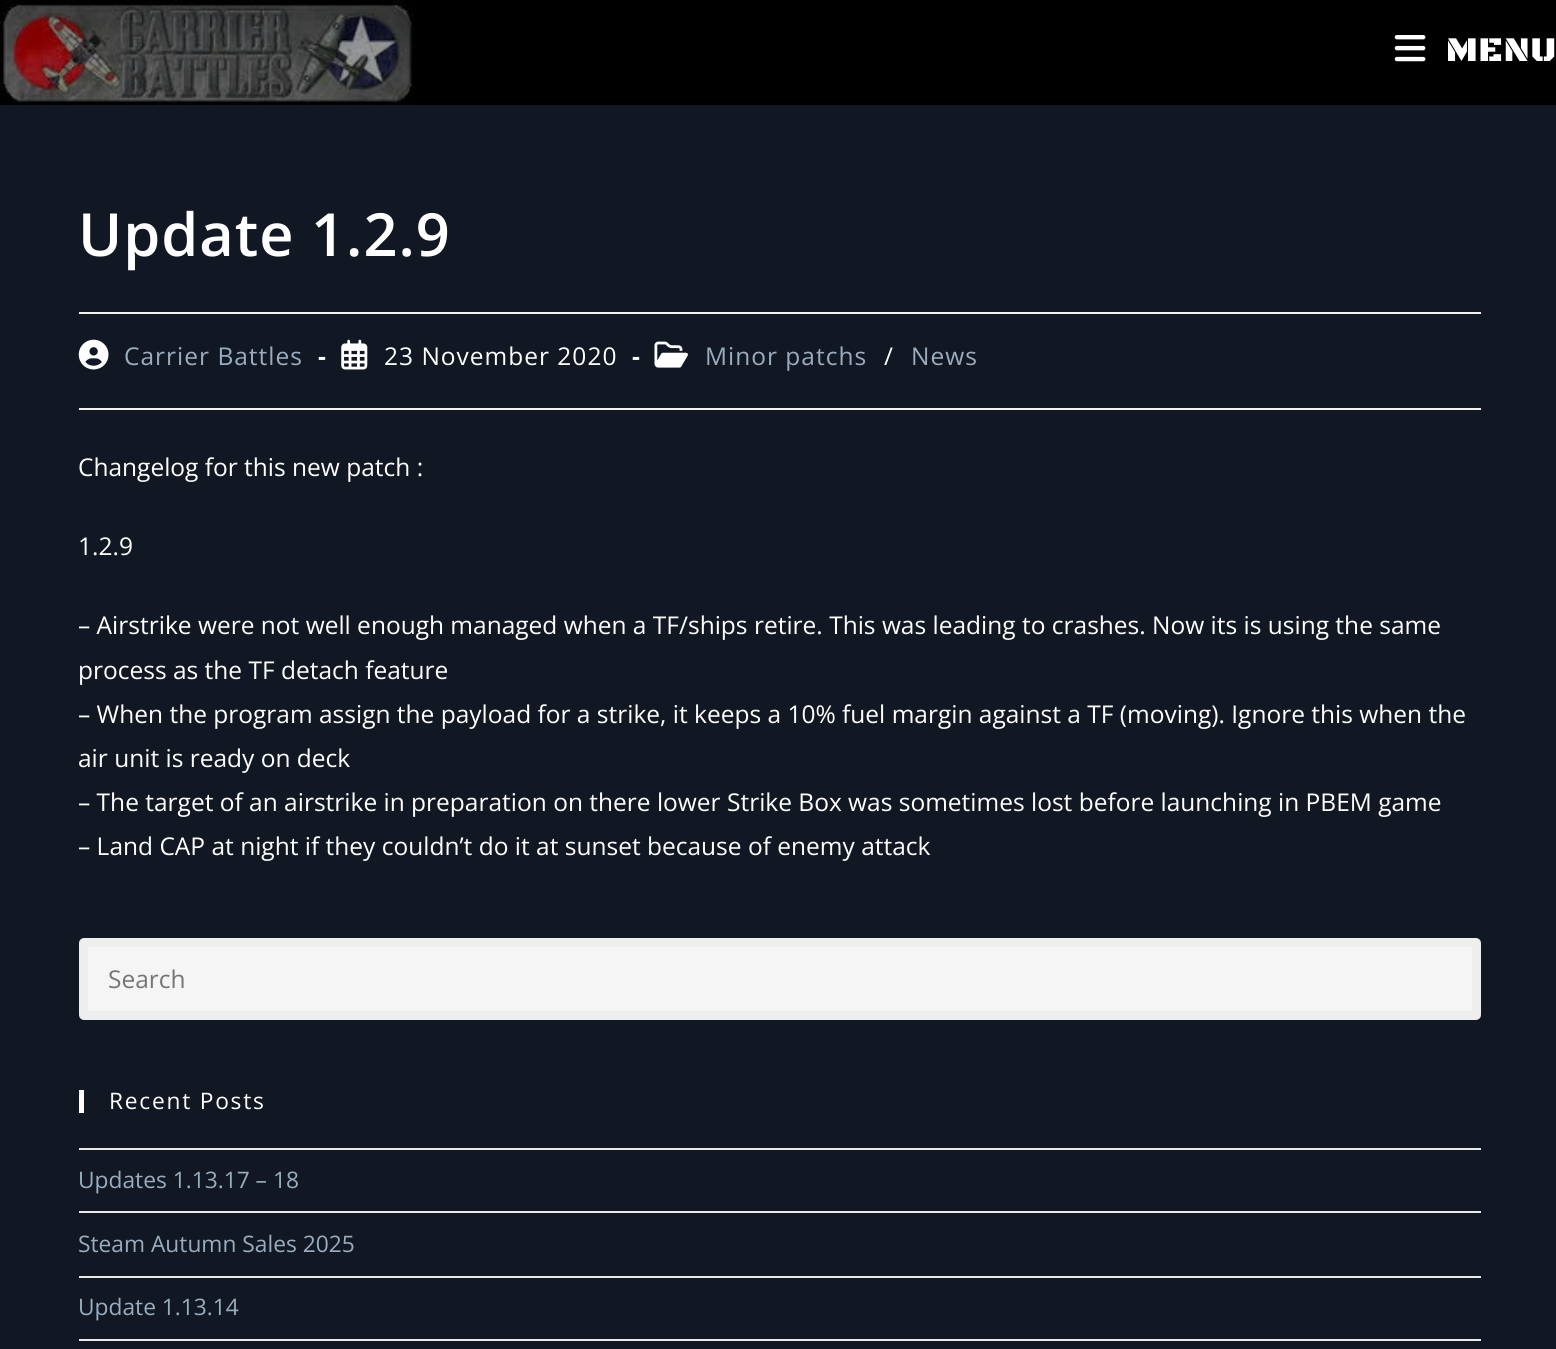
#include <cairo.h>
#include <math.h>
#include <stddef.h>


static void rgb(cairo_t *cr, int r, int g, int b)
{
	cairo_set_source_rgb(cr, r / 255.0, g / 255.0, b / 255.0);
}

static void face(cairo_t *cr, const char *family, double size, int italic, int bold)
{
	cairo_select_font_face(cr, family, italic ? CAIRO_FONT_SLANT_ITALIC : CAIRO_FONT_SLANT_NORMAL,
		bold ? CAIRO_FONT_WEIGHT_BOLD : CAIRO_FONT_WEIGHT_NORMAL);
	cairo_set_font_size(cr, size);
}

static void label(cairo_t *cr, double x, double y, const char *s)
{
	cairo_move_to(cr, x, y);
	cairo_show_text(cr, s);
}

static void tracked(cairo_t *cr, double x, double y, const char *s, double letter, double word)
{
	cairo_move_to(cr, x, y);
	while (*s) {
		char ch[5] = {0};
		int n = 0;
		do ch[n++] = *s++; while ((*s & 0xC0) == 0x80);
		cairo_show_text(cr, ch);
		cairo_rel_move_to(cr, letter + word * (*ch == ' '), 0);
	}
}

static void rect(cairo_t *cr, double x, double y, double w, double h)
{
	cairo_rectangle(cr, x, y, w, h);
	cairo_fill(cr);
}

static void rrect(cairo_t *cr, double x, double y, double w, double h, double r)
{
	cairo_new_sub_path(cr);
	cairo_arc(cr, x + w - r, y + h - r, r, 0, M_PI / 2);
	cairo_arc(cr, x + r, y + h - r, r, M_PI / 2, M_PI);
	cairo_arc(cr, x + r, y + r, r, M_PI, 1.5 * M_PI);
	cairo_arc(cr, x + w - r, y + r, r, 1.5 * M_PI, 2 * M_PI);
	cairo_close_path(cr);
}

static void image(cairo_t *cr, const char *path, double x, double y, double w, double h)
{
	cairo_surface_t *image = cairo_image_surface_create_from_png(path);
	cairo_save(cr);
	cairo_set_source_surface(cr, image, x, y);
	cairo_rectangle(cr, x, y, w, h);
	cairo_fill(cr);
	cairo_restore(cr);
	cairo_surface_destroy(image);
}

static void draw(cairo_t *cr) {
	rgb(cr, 17, 23, 35);
	cairo_paint(cr);
	rgb(cr, 0, 0, 0);
	rect(cr, 0, 0, 1556, 105);
	image(cr, "image0.png", 0, 0, 415, 105);
	image(cr, "image1.png", 1394, 35, 32, 27);
	face(cr, "Black Ops One Black", 35, 0, 0);
	rgb(cr, 255, 255, 255);
	tracked(cr, 1446, 61, "MENU", 1, 0);
	rgb(cr, 241, 241, 241);
	rect(cr, 79, 312, 1402, 2);
	face(cr, "Open Sans SemiBold", 59.5, 0, 0);
	rgb(cr, 255, 255, 255);
	tracked(cr, 78, 256, "Update 1.2.9", 1, 0);
	rgb(cr, 241, 241, 241);
	rect(cr, 79, 408, 1402, 2);
	image(cr, "image2.png", 78, 339, 31, 31);
	face(cr, "Open Sans", 24.5, 0, 0);
	rgb(cr, 154, 173, 191);
	tracked(cr, 124, 365, "Carrier Battles", 1, 0);
	face(cr, "Open Sans", 24.5, 0, 1);
	rgb(cr, 255, 255, 255);
	tracked(cr, 318, 365, "-", 1, 0);
	image(cr, "image3.png", 341, 339, 27, 31);
	face(cr, "Open Sans", 24.5, 0, 0);
	tracked(cr, 384, 365, "23 November 2020", 1, 0);
	face(cr, "Open Sans", 24.5, 0, 1);
	tracked(cr, 632, 365, "-", 1, 0);
	image(cr, "image4.png", 654, 341, 34, 27);
	face(cr, "Open Sans", 24.5, 0, 0);
	rgb(cr, 154, 173, 191);
	tracked(cr, 705, 365, "Minor patchs", 1, 0);
	rgb(cr, 255, 255, 255);
	tracked(cr, 884, 365, "/", 1, 0);
	rgb(cr, 154, 173, 191);
	tracked(cr, 911, 365, "News", 1, 0);
	rgb(cr, 255, 255, 255);
	label(cr, 78, 476, "Changelog for this new patch :");
	label(cr, 78, 555, "1.2.9");
	label(cr, 78, 634, "– Airstrike were not well enough managed when a TF/ships retire. This was leading to crashes. Now its is using the same");
	label(cr, 78, 679, "process as the TF detach feature");
	label(cr, 78, 723, "– When the program assign the payload for a strike, it keeps a 10% fuel margin against a TF (moving). Ignore this when the");
	label(cr, 78, 767, "air unit is ready on deck");
	label(cr, 78, 811, "– The target of an airstrike in preparation on there lower Strike Box was sometimes lost before launching in PBEM game");
	label(cr, 78, 855, "– Land CAP at night if they couldn’t do it at sunset because of enemy attack");
	rgb(cr, 245, 245, 245);
	rrect(cr, 83.5, 942.5, 1393, 73, 0.5);
	cairo_fill_preserve(cr);
	rgb(cr, 238, 238, 238);
	cairo_set_line_width(cr, 9);
	cairo_stroke(cr);
	rgb(cr, 117, 117, 117);
	label(cr, 108, 988, "Search");
	rgb(cr, 255, 255, 255);
	rect(cr, 79, 1090, 5, 23);
	face(cr, "Open Sans", 22.75, 0, 0);
	tracked(cr, 109, 1109, "Recent Posts", 1.75, 0);
	rgb(cr, 233, 233, 233);
	rect(cr, 79, 1148, 1402, 2);
	rect(cr, 79, 1211, 1402, 2);
	rgb(cr, 154, 173, 191);
	label(cr, 78, 1188, "Updates 1.13.17 – 18");
	rgb(cr, 233, 233, 233);
	rect(cr, 79, 1276, 1402, 2);
	rgb(cr, 154, 173, 191);
	label(cr, 78, 1252, "Steam Autumn Sales 2025");
	rgb(cr, 233, 233, 233);
	rect(cr, 79, 1339, 1402, 2);
	rgb(cr, 154, 173, 191);
	label(cr, 78, 1315, "Update 1.13.14");
}

int main(void) {
	cairo_surface_t *surface = cairo_image_surface_create(CAIRO_FORMAT_RGB24, 1556, 1349);
	cairo_t *cr = cairo_create(surface);
	cairo_font_options_t *options = cairo_font_options_create();
	cairo_font_options_set_hint_metrics(options, CAIRO_HINT_METRICS_OFF);
	cairo_font_options_set_hint_style(options, CAIRO_HINT_STYLE_NONE);
	cairo_set_font_options(cr, options);
	cairo_set_miter_limit(cr, 4);
	draw(cr);
	cairo_surface_write_to_png(surface, "render.png");
	cairo_font_options_destroy(options);
	cairo_destroy(cr);
	cairo_surface_destroy(surface);
	return 0;
}
